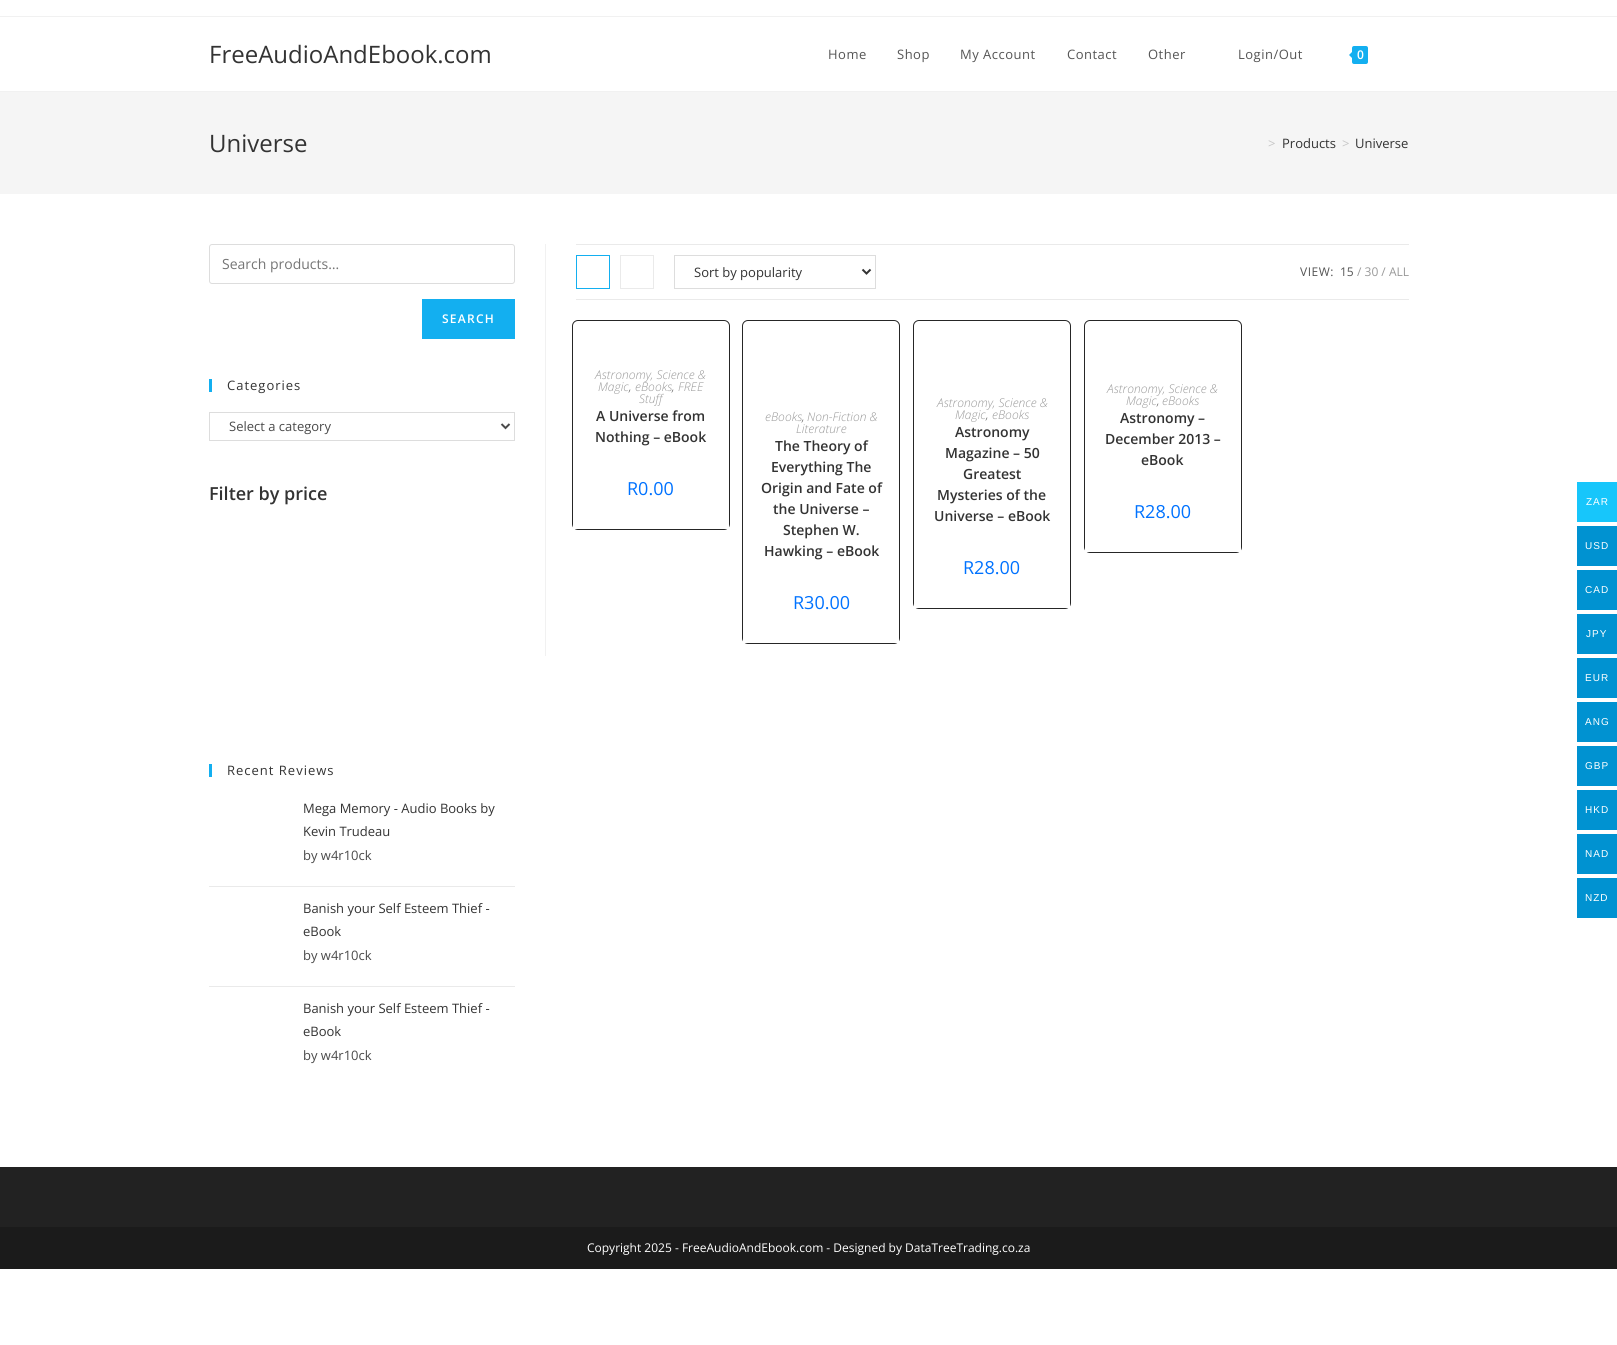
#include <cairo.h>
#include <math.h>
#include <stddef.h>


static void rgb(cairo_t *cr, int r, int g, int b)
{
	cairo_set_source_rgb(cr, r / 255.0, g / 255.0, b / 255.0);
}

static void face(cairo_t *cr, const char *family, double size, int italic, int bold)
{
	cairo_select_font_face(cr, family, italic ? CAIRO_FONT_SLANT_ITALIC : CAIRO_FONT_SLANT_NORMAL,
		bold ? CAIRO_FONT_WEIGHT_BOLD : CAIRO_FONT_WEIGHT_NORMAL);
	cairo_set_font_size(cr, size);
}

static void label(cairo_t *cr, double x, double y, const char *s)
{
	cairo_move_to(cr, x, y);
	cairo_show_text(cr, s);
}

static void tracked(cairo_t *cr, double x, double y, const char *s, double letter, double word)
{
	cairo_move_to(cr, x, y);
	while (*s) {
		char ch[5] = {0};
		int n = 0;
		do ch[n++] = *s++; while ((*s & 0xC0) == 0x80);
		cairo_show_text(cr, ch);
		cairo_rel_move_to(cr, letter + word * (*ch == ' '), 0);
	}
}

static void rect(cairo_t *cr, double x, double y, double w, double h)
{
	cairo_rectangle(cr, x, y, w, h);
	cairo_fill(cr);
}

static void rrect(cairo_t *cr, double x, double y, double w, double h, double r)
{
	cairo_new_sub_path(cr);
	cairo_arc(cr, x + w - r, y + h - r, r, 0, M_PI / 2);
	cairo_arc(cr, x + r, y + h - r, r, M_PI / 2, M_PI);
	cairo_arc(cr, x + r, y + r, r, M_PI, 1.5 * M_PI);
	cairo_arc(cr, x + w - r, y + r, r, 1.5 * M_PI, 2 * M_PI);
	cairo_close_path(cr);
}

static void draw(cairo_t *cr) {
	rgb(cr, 255, 255, 255);
	cairo_paint(cr);
	rgb(cr, 241, 241, 241);
	rect(cr, 0, 16, 1617, 1);
	rect(cr, 0, 91, 1617, 1);
	face(cr, "Open Sans", 24, 0, 0);
	rgb(cr, 51, 51, 51);
	label(cr, 209, 63, "FreeAudioAndEbook.com");
	face(cr, "Open Sans", 13, 0, 0);
	rgb(cr, 85, 85, 85);
	tracked(cr, 828, 59, "Home", 0.5, 0);
	tracked(cr, 897, 59, "Shop", 0.5, 0);
	tracked(cr, 960, 59, "My Account", 0.5, 0);
	tracked(cr, 1067, 59, "Contact", 0.5, 0);
	tracked(cr, 1148, 59, "Other", 0.5, 0);
	tracked(cr, 1238, 59, "Login/Out", 0.5, 0);
	rgb(cr, 19, 175, 240);
	rrect(cr, 1352, 46, 16, 18, 2);
	cairo_fill(cr);
	cairo_new_path(cr);
	cairo_move_to(cr, 1354, 50);
	cairo_line_to(cr, 1354, 60);
	cairo_line_to(cr, 1349, 55);
	cairo_close_path(cr);
	cairo_fill(cr);
	face(cr, "Open Sans SemiBold", 12, 0, 0);
	rgb(cr, 255, 255, 255);
	label(cr, 1357, 59, "0");
	rgb(cr, 245, 245, 245);
	rect(cr, 0, 92, 1617, 102);
	face(cr, "Open Sans", 24, 0, 0);
	rgb(cr, 51, 51, 51);
	label(cr, 209, 152, "Universe");
	face(cr, "Open Sans", 13, 0, 0);
	rgb(cr, 198, 198, 198);
	label(cr, 1268, 148, ">");
	rgb(cr, 51, 51, 51);
	label(cr, 1282, 148, "Products");
	rgb(cr, 198, 198, 198);
	label(cr, 1342, 148, ">");
	rgb(cr, 51, 51, 51);
	label(cr, 1355, 148, "Universe");
	rrect(cr, 209.5, 244.5, 305, 39, 2.5);
	rgb(cr, 221, 221, 221);
	cairo_set_line_width(cr, 1);
	cairo_stroke(cr);
	face(cr, "Open Sans", 14, 0, 0);
	rgb(cr, 117, 117, 117);
	label(cr, 222, 269, "Search products…");
	rgb(cr, 19, 175, 240);
	rect(cr, 422, 299, 93, 40);
	face(cr, "Open Sans SemiBold", 12, 0, 0);
	rgb(cr, 255, 255, 255);
	tracked(cr, 442, 323, "SEARCH", 1.25, 0);
	rgb(cr, 19, 175, 240);
	rect(cr, 209, 379, 3, 13);
	face(cr, "Open Sans", 13, 0, 0);
	rgb(cr, 51, 51, 51);
	tracked(cr, 227, 390, "Categories", 1, 0);
	cairo_rectangle(cr, 209.5, 412.5, 305, 28);
	rgb(cr, 221, 221, 221);
	cairo_stroke(cr);
	cairo_new_path(cr);
	cairo_move_to(cr, 501.5, 424);
	cairo_line_to(cr, 505.5, 428);
	cairo_line_to(cr, 509.5, 424);
	rgb(cr, 74, 74, 74);
	cairo_set_line_width(cr, 2);
	cairo_stroke(cr);
	label(cr, 229, 431, "Select a category");
	face(cr, "Open Sans SemiBold", 18, 0, 0);
	rgb(cr, 51, 51, 51);
	label(cr, 209, 500, "Filter by price");
	rgb(cr, 19, 175, 240);
	rect(cr, 209, 764, 3, 13);
	face(cr, "Open Sans", 13, 0, 0);
	rgb(cr, 51, 51, 51);
	tracked(cr, 227, 775, "Recent Reviews", 1, 0);
	rgb(cr, 234, 234, 234);
	rect(cr, 209, 886, 306, 1);
	rgb(cr, 51, 51, 51);
	label(cr, 303, 813, "Mega Memory - Audio Books by");
	label(cr, 303, 836, "Kevin Trudeau");
	rgb(cr, 74, 74, 74);
	label(cr, 303, 860, "by w4r10ck");
	rgb(cr, 234, 234, 234);
	rect(cr, 209, 986, 306, 1);
	rgb(cr, 51, 51, 51);
	label(cr, 303, 913, "Banish your Self Esteem Thief -");
	label(cr, 303, 936, "eBook");
	rgb(cr, 74, 74, 74);
	label(cr, 303, 960, "by w4r10ck");
	rgb(cr, 51, 51, 51);
	label(cr, 303, 1013, "Banish your Self Esteem Thief -");
	label(cr, 303, 1036, "eBook");
	rgb(cr, 74, 74, 74);
	label(cr, 303, 1060, "by w4r10ck");
	rgb(cr, 241, 241, 241);
	rect(cr, 545, 244, 1, 412);
	rgb(cr, 234, 234, 234);
	rect(cr, 576, 244, 833, 1);
	rect(cr, 576, 299, 833, 1);
	cairo_rectangle(cr, 576.5, 255.5, 33, 33);
	rgb(cr, 19, 175, 240);
	cairo_set_line_width(cr, 1);
	cairo_stroke(cr);
	cairo_rectangle(cr, 620.5, 255.5, 33, 33);
	rgb(cr, 234, 234, 234);
	cairo_stroke(cr);
	cairo_rectangle(cr, 674.5, 255.5, 201, 33);
	rgb(cr, 221, 221, 221);
	cairo_stroke(cr);
	cairo_new_path(cr);
	cairo_move_to(cr, 862.5, 269.5);
	cairo_line_to(cr, 866.5, 273.5);
	cairo_line_to(cr, 870.5, 269.5);
	rgb(cr, 51, 51, 51);
	cairo_set_line_width(cr, 2);
	cairo_stroke(cr);
	label(cr, 694, 277, "Sort by popularity");
	face(cr, "Open Sans", 12, 0, 0);
	rgb(cr, 85, 85, 85);
	tracked(cr, 1300, 276, "VIEW:", 0.5, 0);
	label(cr, 1340, 276, "15");
	rgb(cr, 153, 153, 153);
	label(cr, 1357, 276, "/ 30 / ALL");
	rrect(cr, 572.5, 320.5, 157, 209, 5.5);
	rgb(cr, 38, 38, 38);
	cairo_set_line_width(cr, 1);
	cairo_stroke(cr);
	rgb(cr, 255, 255, 255);
	rect(cr, 573, 524, 156, 5);
	face(cr, "Open Sans Light", 12, 1, 0);
	rgb(cr, 153, 153, 153);
	label(cr, 595, 379, "Astronomy, Science &");
	label(cr, 598, 391, "Magic");
	label(cr, 635, 391, "eBooks");
	label(cr, 678, 391, "FREE");
	rgb(cr, 74, 74, 74);
	label(cr, 629, 391, ",");
	label(cr, 672, 391, ",");
	rgb(cr, 153, 153, 153);
	label(cr, 639, 403, "Stuff");
	face(cr, "Open Sans SemiBold", 14, 0, 0);
	rgb(cr, 51, 51, 51);
	label(cr, 596, 421, "A Universe from");
	label(cr, 595, 442, "Nothing – eBook");
	face(cr, "Open Sans", 18, 0, 0);
	rgb(cr, 0, 114, 255);
	label(cr, 627, 495, "R0.00");
	rrect(cr, 742.5, 320.5, 157, 323, 5.5);
	rgb(cr, 38, 38, 38);
	cairo_stroke(cr);
	rgb(cr, 255, 255, 255);
	rect(cr, 743, 638, 156, 5);
	face(cr, "Open Sans Light", 12, 1, 0);
	rgb(cr, 153, 153, 153);
	label(cr, 765, 421, "eBooks");
	rgb(cr, 74, 74, 74);
	label(cr, 802, 421, ",");
	rgb(cr, 153, 153, 153);
	label(cr, 807, 421, "Non-Fiction &");
	label(cr, 796, 433, "Literature");
	face(cr, "Open Sans SemiBold", 14, 0, 0);
	rgb(cr, 51, 51, 51);
	label(cr, 775, 451, "The Theory of");
	label(cr, 771, 472, "Everything The");
	label(cr, 761, 493, "Origin and Fate of");
	label(cr, 773, 514, "the Universe –");
	label(cr, 783, 535, "Stephen W.");
	label(cr, 764, 556, "Hawking – eBook");
	face(cr, "Open Sans", 18, 0, 0);
	rgb(cr, 0, 114, 255);
	label(cr, 793, 609, "R30.00");
	rrect(cr, 913.5, 320.5, 157, 288, 5.5);
	rgb(cr, 38, 38, 38);
	cairo_stroke(cr);
	rgb(cr, 255, 255, 255);
	rect(cr, 914, 603, 156, 5);
	face(cr, "Open Sans Light", 12, 1, 0);
	rgb(cr, 153, 153, 153);
	label(cr, 937, 407, "Astronomy, Science &");
	label(cr, 955, 419, "Magic");
	rgb(cr, 74, 74, 74);
	label(cr, 986, 419, ",");
	rgb(cr, 153, 153, 153);
	label(cr, 992, 419, "eBooks");
	face(cr, "Open Sans SemiBold", 14, 0, 0);
	rgb(cr, 51, 51, 51);
	label(cr, 955, 437, "Astronomy");
	label(cr, 945, 458, "Magazine – 50");
	label(cr, 963, 479, "Greatest");
	label(cr, 937, 500, "Mysteries of the");
	label(cr, 934, 521, "Universe – eBook");
	face(cr, "Open Sans", 18, 0, 0);
	rgb(cr, 0, 114, 255);
	label(cr, 963, 574, "R28.00");
	rrect(cr, 1084.5, 320.5, 157, 232, 5.5);
	rgb(cr, 38, 38, 38);
	cairo_stroke(cr);
	rgb(cr, 255, 255, 255);
	rect(cr, 1085, 547, 156, 5);
	face(cr, "Open Sans Light", 12, 1, 0);
	rgb(cr, 153, 153, 153);
	label(cr, 1107, 393, "Astronomy, Science &");
	label(cr, 1126, 405, "Magic");
	label(cr, 1162, 405, "eBooks");
	rgb(cr, 74, 74, 74);
	label(cr, 1157, 405, ",");
	face(cr, "Open Sans SemiBold", 14, 0, 0);
	rgb(cr, 51, 51, 51);
	label(cr, 1120, 423, "Astronomy –");
	label(cr, 1105, 444, "December 2013 –");
	label(cr, 1141, 465, "eBook");
	face(cr, "Open Sans", 18, 0, 0);
	rgb(cr, 0, 114, 255);
	label(cr, 1134, 518, "R28.00");
	rgb(cr, 34, 34, 34);
	rect(cr, 0, 1167, 1617, 60);
	rgb(cr, 27, 27, 27);
	rect(cr, 0, 1227, 1617, 42);
	face(cr, "Open Sans", 12, 0, 0);
	rgb(cr, 255, 255, 255);
	label(cr, 587, 1252, "Copyright 2025 - FreeAudioAndEbook.com - Designed by DataTreeTrading.co.za");
	rgb(cr, 23, 198, 251);
	rect(cr, 1577, 482, 40, 40);
	face(cr, "Liberation Sans", 10, 0, 0);
	rgb(cr, 255, 255, 255);
	tracked(cr, 1586, 505, "ZAR", 1, 0);
	rgb(cr, 0, 146, 209);
	rect(cr, 1577, 526, 40, 40);
	rgb(cr, 255, 255, 255);
	tracked(cr, 1585, 549, "USD", 1, 0);
	rgb(cr, 0, 146, 209);
	rect(cr, 1577, 570, 40, 40);
	rgb(cr, 255, 255, 255);
	tracked(cr, 1585, 593, "CAD", 1, 0);
	rgb(cr, 0, 146, 209);
	rect(cr, 1577, 614, 40, 40);
	rgb(cr, 255, 255, 255);
	tracked(cr, 1586, 637, "JPY", 1, 0);
	rgb(cr, 0, 146, 209);
	rect(cr, 1577, 658, 40, 40);
	rgb(cr, 255, 255, 255);
	tracked(cr, 1585, 681, "EUR", 1, 0);
	rgb(cr, 0, 146, 209);
	rect(cr, 1577, 702, 40, 40);
	rgb(cr, 255, 255, 255);
	tracked(cr, 1585, 725, "ANG", 1, 0);
	rgb(cr, 0, 146, 209);
	rect(cr, 1577, 746, 40, 40);
	rgb(cr, 255, 255, 255);
	tracked(cr, 1585, 769, "GBP", 1, 0);
	rgb(cr, 0, 146, 209);
	rect(cr, 1577, 790, 40, 40);
	rgb(cr, 255, 255, 255);
	tracked(cr, 1585, 813, "HKD", 1, 0);
	rgb(cr, 0, 146, 209);
	rect(cr, 1577, 834, 40, 40);
	rgb(cr, 255, 255, 255);
	tracked(cr, 1585, 857, "NAD", 1, 0);
	rgb(cr, 0, 146, 209);
	rect(cr, 1577, 878, 40, 40);
	rgb(cr, 255, 255, 255);
	tracked(cr, 1585, 901, "NZD", 1, 0);
}

int main(void) {
	cairo_surface_t *surface = cairo_image_surface_create(CAIRO_FORMAT_RGB24, 1617, 1345);
	cairo_t *cr = cairo_create(surface);
	cairo_font_options_t *options = cairo_font_options_create();
	cairo_font_options_set_hint_metrics(options, CAIRO_HINT_METRICS_OFF);
	cairo_font_options_set_hint_style(options, CAIRO_HINT_STYLE_NONE);
	cairo_set_font_options(cr, options);
	cairo_set_miter_limit(cr, 4);
	draw(cr);
	cairo_surface_write_to_png(surface, "render.png");
	cairo_font_options_destroy(options);
	cairo_destroy(cr);
	cairo_surface_destroy(surface);
	return 0;
}
